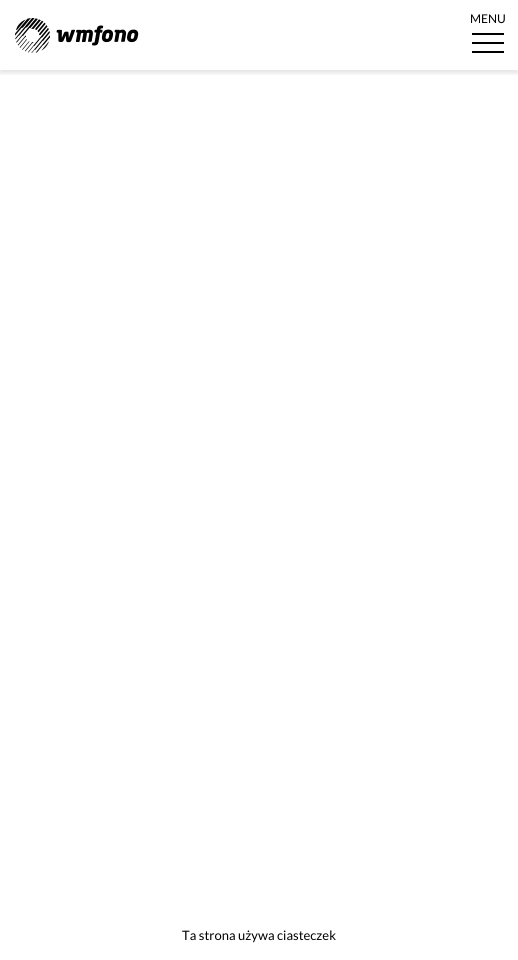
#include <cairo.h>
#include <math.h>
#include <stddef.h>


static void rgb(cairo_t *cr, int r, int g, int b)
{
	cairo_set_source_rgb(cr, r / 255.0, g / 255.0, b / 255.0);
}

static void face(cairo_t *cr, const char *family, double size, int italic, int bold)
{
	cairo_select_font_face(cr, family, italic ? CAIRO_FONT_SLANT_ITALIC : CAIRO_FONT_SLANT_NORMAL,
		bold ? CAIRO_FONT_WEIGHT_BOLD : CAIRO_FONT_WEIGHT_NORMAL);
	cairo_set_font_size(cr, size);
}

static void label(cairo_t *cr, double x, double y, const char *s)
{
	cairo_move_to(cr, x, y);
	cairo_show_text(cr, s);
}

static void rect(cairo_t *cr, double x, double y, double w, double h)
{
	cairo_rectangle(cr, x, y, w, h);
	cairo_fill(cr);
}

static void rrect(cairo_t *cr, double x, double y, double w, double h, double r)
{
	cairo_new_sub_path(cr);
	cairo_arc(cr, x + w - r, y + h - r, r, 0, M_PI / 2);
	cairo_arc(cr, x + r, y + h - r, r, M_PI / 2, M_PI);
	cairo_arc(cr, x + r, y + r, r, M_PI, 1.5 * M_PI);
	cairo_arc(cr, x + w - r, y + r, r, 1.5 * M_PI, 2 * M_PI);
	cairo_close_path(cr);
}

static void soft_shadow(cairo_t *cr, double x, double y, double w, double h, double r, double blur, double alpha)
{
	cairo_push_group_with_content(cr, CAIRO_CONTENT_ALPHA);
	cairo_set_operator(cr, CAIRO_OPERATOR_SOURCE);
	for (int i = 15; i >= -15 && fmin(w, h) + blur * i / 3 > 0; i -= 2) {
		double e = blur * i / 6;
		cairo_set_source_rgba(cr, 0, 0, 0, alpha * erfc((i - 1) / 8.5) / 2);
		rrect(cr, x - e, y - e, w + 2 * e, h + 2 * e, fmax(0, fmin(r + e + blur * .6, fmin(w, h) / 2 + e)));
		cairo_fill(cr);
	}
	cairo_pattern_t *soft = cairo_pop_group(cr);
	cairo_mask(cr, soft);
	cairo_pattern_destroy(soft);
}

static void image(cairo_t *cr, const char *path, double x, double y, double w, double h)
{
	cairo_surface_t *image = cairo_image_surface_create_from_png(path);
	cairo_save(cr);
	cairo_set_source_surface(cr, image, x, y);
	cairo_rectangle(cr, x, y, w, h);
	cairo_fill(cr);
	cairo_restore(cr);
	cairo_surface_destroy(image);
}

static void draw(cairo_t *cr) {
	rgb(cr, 255, 255, 255);
	cairo_paint(cr);
	cairo_save(cr);
	cairo_rectangle(cr, 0, 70, 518, 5);
	cairo_clip(cr);
	rgb(cr, 0, 0, 0);
	soft_shadow(cr, 0, 3, 518, 70, 0, 2.5, 0.12);
	cairo_restore(cr);
	image(cr, "image0.png", 15, 18, 124, 35);
	face(cr, "Lato", 12, 0, 0);
	rgb(cr, 0, 0, 0);
	label(cr, 470, 23, "MENU");
	rect(cr, 472, 33, 32, 2);
	rect(cr, 472, 42, 32, 2);
	rect(cr, 472, 51, 32, 2);
	face(cr, "Lato", 13, 0, 0);
	label(cr, 182, 940, "Ta strona używa ciasteczek");
}

int main(void) {
	cairo_surface_t *surface = cairo_image_surface_create(CAIRO_FORMAT_RGB24, 518, 960);
	cairo_t *cr = cairo_create(surface);
	cairo_font_options_t *options = cairo_font_options_create();
	cairo_font_options_set_hint_metrics(options, CAIRO_HINT_METRICS_OFF);
	cairo_font_options_set_hint_style(options, CAIRO_HINT_STYLE_NONE);
	cairo_set_font_options(cr, options);
	cairo_set_miter_limit(cr, 4);
	draw(cr);
	cairo_surface_write_to_png(surface, "render.png");
	cairo_font_options_destroy(options);
	cairo_destroy(cr);
	cairo_surface_destroy(surface);
	return 0;
}
